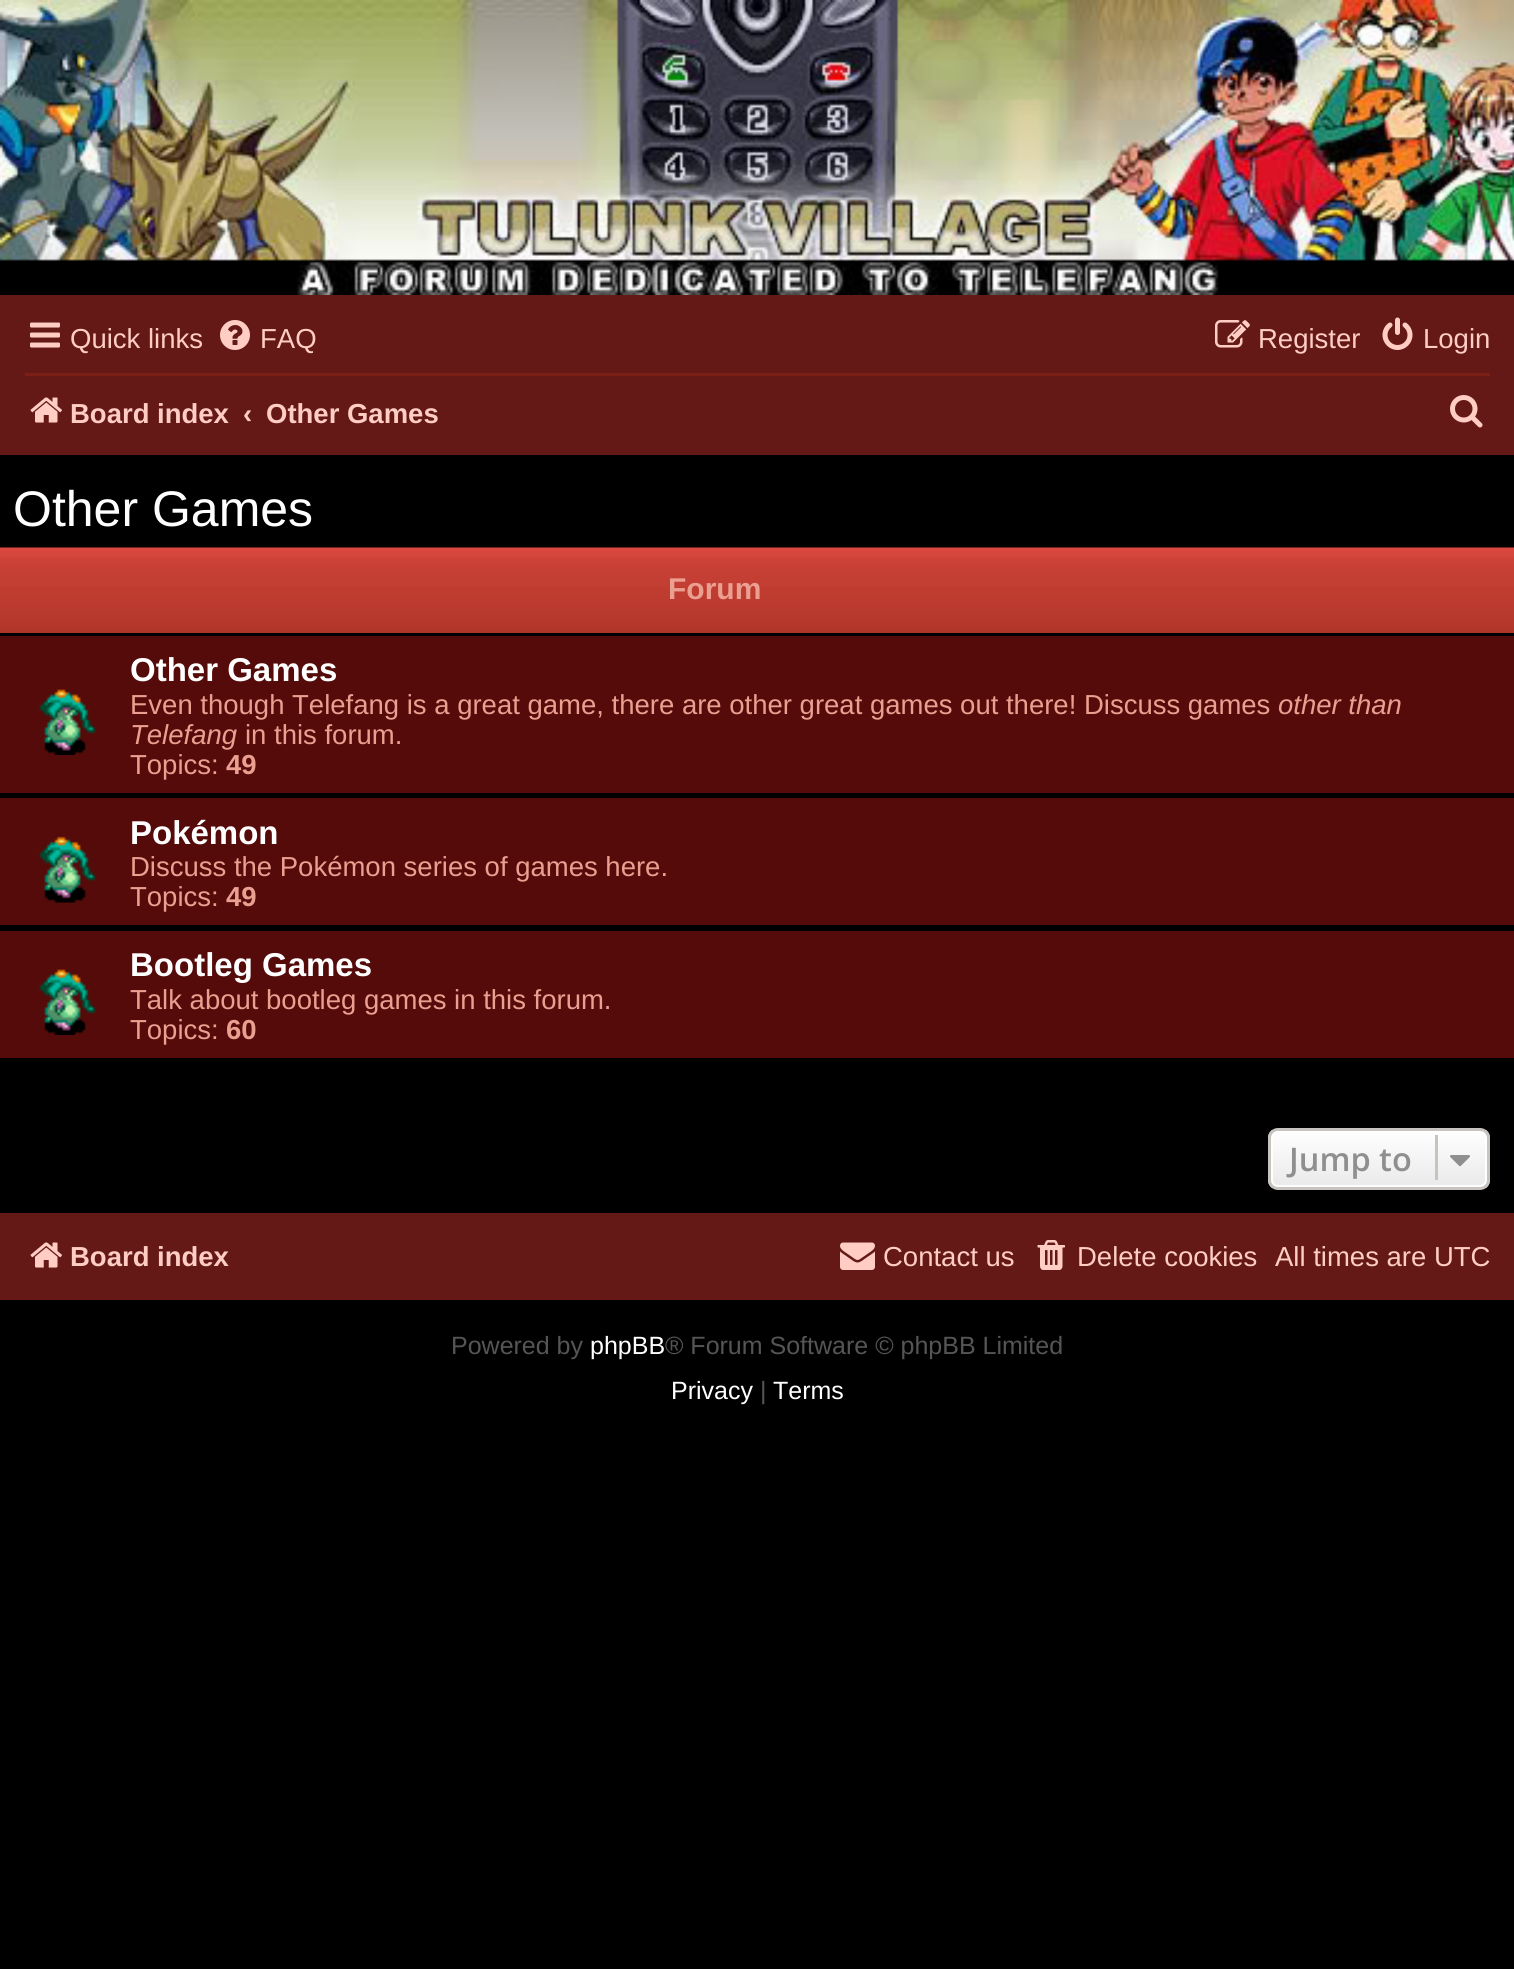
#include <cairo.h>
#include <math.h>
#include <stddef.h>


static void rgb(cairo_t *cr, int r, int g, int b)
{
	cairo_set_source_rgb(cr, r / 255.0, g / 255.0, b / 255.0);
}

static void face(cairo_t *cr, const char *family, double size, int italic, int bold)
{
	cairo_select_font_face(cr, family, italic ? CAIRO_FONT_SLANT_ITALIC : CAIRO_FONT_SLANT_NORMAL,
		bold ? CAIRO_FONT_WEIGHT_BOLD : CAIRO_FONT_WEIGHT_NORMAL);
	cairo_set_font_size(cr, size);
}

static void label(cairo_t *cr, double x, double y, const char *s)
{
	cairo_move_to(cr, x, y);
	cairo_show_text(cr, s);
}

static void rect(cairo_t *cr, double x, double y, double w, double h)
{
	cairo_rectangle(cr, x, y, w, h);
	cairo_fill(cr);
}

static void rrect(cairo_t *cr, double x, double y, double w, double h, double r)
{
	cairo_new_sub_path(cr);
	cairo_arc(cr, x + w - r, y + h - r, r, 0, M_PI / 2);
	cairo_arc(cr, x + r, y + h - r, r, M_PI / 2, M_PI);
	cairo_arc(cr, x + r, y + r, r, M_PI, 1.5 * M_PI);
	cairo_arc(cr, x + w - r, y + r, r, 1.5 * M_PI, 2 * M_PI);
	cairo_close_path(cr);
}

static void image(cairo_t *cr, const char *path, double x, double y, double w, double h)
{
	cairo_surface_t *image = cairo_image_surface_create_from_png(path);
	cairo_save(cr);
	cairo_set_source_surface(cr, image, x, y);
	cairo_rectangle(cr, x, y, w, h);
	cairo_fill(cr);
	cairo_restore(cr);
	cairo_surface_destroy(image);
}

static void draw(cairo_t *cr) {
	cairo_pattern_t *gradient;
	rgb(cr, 0, 0, 0);
	cairo_paint(cr);
	image(cr, "image0.png", 0, 0, 1514, 295);
	rgb(cr, 100, 25, 23);
	rect(cr, 0, 295, 1514, 160);
	image(cr, "image1.png", 30, 322, 30, 26);
	face(cr, "Liberation Sans", 27.5, 0, 0);
	rgb(cr, 255, 205, 196);
	label(cr, 70, 348, "Quick links");
	image(cr, "image2.png", 220, 320, 30, 30);
	label(cr, 260, 348, "FAQ");
	image(cr, "image3.png", 1215, 320, 35, 28);
	label(cr, 1258, 348, "Register");
	image(cr, "image4.png", 1382, 317, 31, 33);
	label(cr, 1423, 348, "Login");
	rgb(cr, 124, 31, 21);
	rect(cr, 25, 373, 1465, 3);
	image(cr, "image5.png", 30, 397, 32, 26);
	face(cr, "Liberation Sans", 27.5, 0, 1);
	rgb(cr, 255, 205, 196);
	label(cr, 70, 423, "Board index");
	label(cr, 243, 423, "‹");
	label(cr, 266, 423, "Other Games");
	image(cr, "image6.png", 1450, 395, 33, 33);
	face(cr, "Liberation Sans", 50, 0, 0);
	rgb(cr, 255, 255, 255);
	label(cr, 13, 526, "Other Games");
	image(cr, "image7.png", 0, 547, 1514, 86);
	face(cr, "Liberation Sans", 30, 0, 1);
	rgb(cr, 235, 159, 144);
	label(cr, 668, 599, "Forum");
	rgb(cr, 84, 11, 10);
	rect(cr, 0, 636, 1514, 422);
	rgb(cr, 0, 0, 0);
	rect(cr, 0, 793, 1514, 5);
	image(cr, "image8.png", 39, 689, 57, 66);
	face(cr, "Liberation Sans", 33, 0, 1);
	rgb(cr, 255, 255, 255);
	label(cr, 130, 681, "Other Games");
	face(cr, "Liberation Sans", 27.5, 0, 0);
	rgb(cr, 235, 159, 144);
	label(cr, 130, 714, "Even though Telefang is a great game, there are other great games out there! Discuss games");
	face(cr, "Liberation Sans", 27.5, 1, 0);
	label(cr, 1278, 714, "other than");
	label(cr, 130, 744, "Telefang");
	face(cr, "Liberation Sans", 27.5, 0, 0);
	label(cr, 245, 744, "in this forum.");
	label(cr, 130, 774, "Topics:");
	face(cr, "Liberation Sans", 27.5, 0, 1);
	label(cr, 226, 774, "49");
	rgb(cr, 0, 0, 0);
	rect(cr, 0, 925, 1514, 6);
	image(cr, "image9.png", 39, 836, 57, 67);
	face(cr, "Liberation Sans", 33, 0, 1);
	rgb(cr, 255, 255, 255);
	label(cr, 130, 844, "Pokémon");
	face(cr, "Liberation Sans", 27.5, 0, 0);
	rgb(cr, 235, 159, 144);
	label(cr, 130, 876, "Discuss the Pokémon series of games here.");
	label(cr, 130, 906, "Topics:");
	face(cr, "Liberation Sans", 27.5, 0, 1);
	label(cr, 226, 906, "49");
	image(cr, "image8.png", 39, 969, 57, 66);
	face(cr, "Liberation Sans", 33, 0, 1);
	rgb(cr, 255, 255, 255);
	label(cr, 130, 976, "Bootleg Games");
	face(cr, "Liberation Sans", 27.5, 0, 0);
	rgb(cr, 235, 159, 144);
	label(cr, 130, 1009, "Talk about bootleg games in this forum.");
	label(cr, 130, 1039, "Topics:");
	face(cr, "Liberation Sans", 27.5, 0, 1);
	label(cr, 226, 1039, "60");
	cairo_save(cr);
	rrect(cr, 1268, 1128, 222, 62, 10);
	cairo_clip(cr);
	gradient = cairo_pattern_create_linear(1379, 1130, 1379, 1188);
	cairo_pattern_add_color_stop_rgba(gradient, 0, 1, 1, 1, 1);
	cairo_pattern_add_color_stop_rgba(gradient, 1, 0.914, 0.914, 0.914, 1);
	cairo_set_source(cr, gradient);
	cairo_pattern_destroy(gradient);
	rect(cr, 1268, 1130, 222, 58);
	cairo_restore(cr);
	rrect(cr, 1271.5, 1131.5, 215, 55, 6.5);
	rgb(cr, 255, 255, 255);
	cairo_set_line_width(cr, 3);
	cairo_stroke(cr);
	rrect(cr, 1269.5, 1129.5, 219, 59, 8.5);
	rgb(cr, 199, 195, 191);
	cairo_stroke(cr);
	face(cr, "Open Sans SemiBold", 32.5, 0, 0);
	rgb(cr, 143, 143, 143);
	label(cr, 1289, 1171, "Jump to");
	rgb(cr, 199, 195, 191);
	rect(cr, 1435, 1135, 3, 45);
	image(cr, "image10.png", 1450, 1155, 20, 12);
	rgb(cr, 100, 25, 23);
	rect(cr, 0, 1213, 1514, 87);
	image(cr, "image5.png", 30, 1242, 32, 26);
	face(cr, "Liberation Sans", 27.5, 0, 1);
	rgb(cr, 255, 205, 196);
	label(cr, 70, 1266, "Board index");
	image(cr, "image11.png", 840, 1242, 35, 28);
	face(cr, "Liberation Sans", 27.5, 0, 0);
	label(cr, 883, 1266, "Contact us");
	image(cr, "image12.png", 1037, 1240, 28, 30);
	label(cr, 1077, 1266, "Delete cookies");
	label(cr, 1275, 1266, "All times are UTC");
	face(cr, "Liberation Sans", 25, 0, 0);
	rgb(cr, 85, 85, 85);
	label(cr, 451, 1354, "Powered by");
	rgb(cr, 255, 255, 255);
	label(cr, 590, 1354, "phpBB");
	rgb(cr, 85, 85, 85);
	label(cr, 665, 1354, "® Forum Software © phpBB Limited");
	rgb(cr, 255, 255, 255);
	label(cr, 671, 1399, "Privacy");
	rgb(cr, 85, 85, 85);
	label(cr, 760, 1399, "|");
	rgb(cr, 255, 255, 255);
	label(cr, 773, 1399, "Terms");
}

int main(void) {
	cairo_surface_t *surface = cairo_image_surface_create(CAIRO_FORMAT_RGB24, 1514, 1969);
	cairo_t *cr = cairo_create(surface);
	cairo_font_options_t *options = cairo_font_options_create();
	cairo_font_options_set_hint_metrics(options, CAIRO_HINT_METRICS_OFF);
	cairo_font_options_set_hint_style(options, CAIRO_HINT_STYLE_NONE);
	cairo_set_font_options(cr, options);
	cairo_set_miter_limit(cr, 4);
	draw(cr);
	cairo_surface_write_to_png(surface, "render.png");
	cairo_font_options_destroy(options);
	cairo_destroy(cr);
	cairo_surface_destroy(surface);
	return 0;
}
